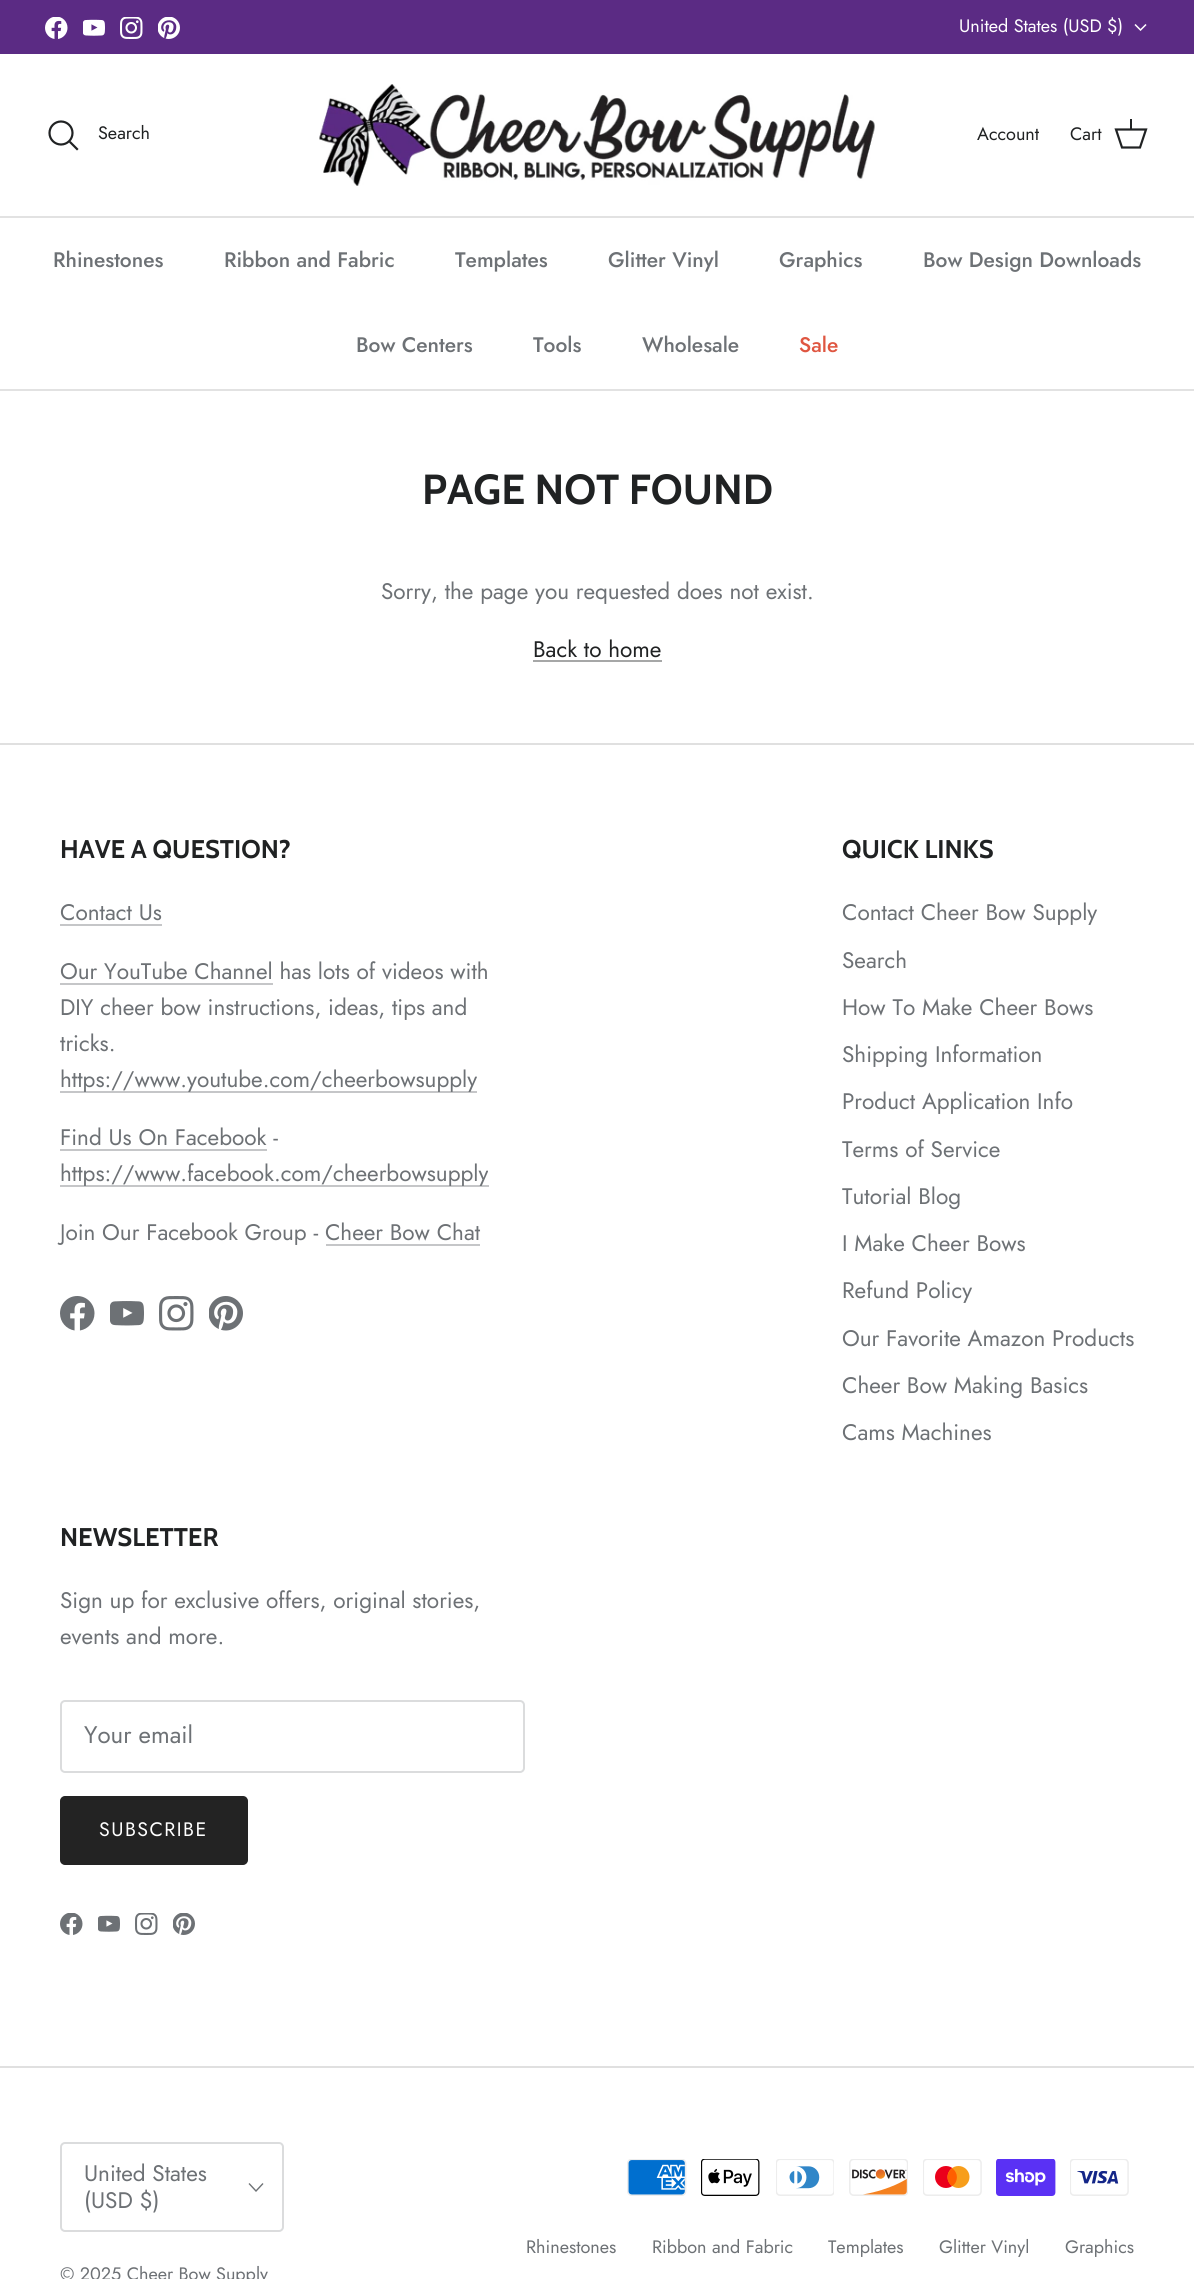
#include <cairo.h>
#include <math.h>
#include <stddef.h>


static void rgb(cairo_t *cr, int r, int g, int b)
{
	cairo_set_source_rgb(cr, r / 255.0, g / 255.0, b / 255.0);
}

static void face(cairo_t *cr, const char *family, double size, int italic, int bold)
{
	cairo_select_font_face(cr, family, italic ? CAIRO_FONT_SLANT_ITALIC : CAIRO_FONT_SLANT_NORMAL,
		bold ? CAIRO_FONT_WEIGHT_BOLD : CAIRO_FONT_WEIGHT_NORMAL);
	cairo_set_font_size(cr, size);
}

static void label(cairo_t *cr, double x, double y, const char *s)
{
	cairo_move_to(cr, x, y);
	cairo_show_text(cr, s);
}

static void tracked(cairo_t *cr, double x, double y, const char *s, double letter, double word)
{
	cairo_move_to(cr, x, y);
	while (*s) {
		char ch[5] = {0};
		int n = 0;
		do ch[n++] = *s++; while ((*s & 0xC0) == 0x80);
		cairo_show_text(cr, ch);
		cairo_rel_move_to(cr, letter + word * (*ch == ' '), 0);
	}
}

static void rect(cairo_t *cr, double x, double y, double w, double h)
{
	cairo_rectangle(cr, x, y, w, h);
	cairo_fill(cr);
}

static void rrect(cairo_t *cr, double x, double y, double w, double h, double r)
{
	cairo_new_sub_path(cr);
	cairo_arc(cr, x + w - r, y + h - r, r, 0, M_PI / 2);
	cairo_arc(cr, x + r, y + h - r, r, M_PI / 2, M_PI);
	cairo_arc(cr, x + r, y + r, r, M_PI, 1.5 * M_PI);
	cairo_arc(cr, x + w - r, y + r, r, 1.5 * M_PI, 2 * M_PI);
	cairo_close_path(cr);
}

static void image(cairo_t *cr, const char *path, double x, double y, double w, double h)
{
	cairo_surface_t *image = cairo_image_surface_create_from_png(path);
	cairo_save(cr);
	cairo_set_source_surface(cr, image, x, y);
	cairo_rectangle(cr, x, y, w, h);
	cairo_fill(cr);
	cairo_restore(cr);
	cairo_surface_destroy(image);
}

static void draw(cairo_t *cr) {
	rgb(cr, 255, 255, 255);
	cairo_paint(cr);
	rgb(cr, 91, 43, 132);
	rect(cr, 0, 0, 1194, 54);
	image(cr, "image0.png", 45, 17, 23, 22);
	image(cr, "image1.png", 83, 19, 22, 17);
	image(cr, "image2.png", 120, 17, 23, 22);
	image(cr, "image3.png", 158, 17, 22, 22);
	face(cr, "Jost", 18, 0, 0);
	rgb(cr, 255, 255, 255);
	label(cr, 959, 32, "United States (USD $)");
	cairo_new_path(cr);
	cairo_move_to(cr, 1146, 24.5);
	cairo_line_to(cr, 1140.5, 30);
	cairo_line_to(cr, 1135, 24.5);
	cairo_set_line_width(cr, 1.5);
	cairo_stroke(cr);
	rgb(cr, 226, 226, 226);
	rect(cr, 0, 216, 1194, 2);
	cairo_arc(cr, 61, 133, 11.5, 0, 2 * M_PI);
	rgb(cr, 32, 34, 35);
	cairo_set_line_width(cr, 2.2);
	cairo_stroke(cr);
	label(cr, 98, 139, "Search");
	cairo_new_path(cr);
	cairo_move_to(cr, 70.5, 142.5);
	cairo_line_to(cr, 77, 149);
	cairo_set_line_cap(cr, CAIRO_LINE_CAP_SQUARE);
	cairo_stroke(cr);
	image(cr, "image4.png", 319, 84, 556, 102);
	label(cr, 977, 140, "Account");
	label(cr, 1070, 140, "Cart");
	cairo_new_path(cr);
	cairo_move_to(cr, 1116, 129.5);
	cairo_line_to(cr, 1146, 129.5);
	cairo_line_to(cr, 1140, 147.5);
	cairo_line_to(cr, 1122, 147.5);
	cairo_close_path(cr);
	cairo_set_line_cap(cr, CAIRO_LINE_CAP_BUTT);
	cairo_stroke(cr);
	rect(cr, 1130, 119, 2, 11);
	rgb(cr, 226, 226, 226);
	rect(cr, 0, 389, 1194, 2);
	face(cr, "Jost Medium", 21, 0, 0);
	rgb(cr, 109, 113, 117);
	label(cr, 53, 267, "Rhinestones");
	label(cr, 224, 267, "Ribbon and Fabric");
	label(cr, 455, 267, "Templates");
	label(cr, 608, 267, "Glitter Vinyl");
	label(cr, 779, 267, "Graphics");
	label(cr, 923, 267, "Bow Design Downloads");
	label(cr, 356, 352, "Bow Centers");
	label(cr, 533, 352, "Tools");
	label(cr, 642, 352, "Wholesale");
	rgb(cr, 223, 86, 65);
	label(cr, 799, 352, "Sale");
	face(cr, "Cabin", 42, 0, 1);
	rgb(cr, 32, 34, 35);
	label(cr, 422, 504, "PAGE NOT FOUND");
	face(cr, "Jost", 22.5, 0, 0);
	rgb(cr, 109, 113, 117);
	label(cr, 381, 599, "Sorry, the page you requested does not exist.");
	rgb(cr, 32, 34, 35);
	label(cr, 533, 657, "Back to home");
	rgb(cr, 166, 167, 167);
	rect(cr, 533, 660, 129, 2);
	rgb(cr, 224, 224, 224);
	rect(cr, 0, 743, 1194, 2);
	face(cr, "Cabin", 25.6, 0, 1);
	rgb(cr, 32, 34, 35);
	label(cr, 60, 858, "HAVE A QUESTION?");
	face(cr, "Jost", 22.5, 0, 0);
	rgb(cr, 109, 113, 117);
	label(cr, 60, 920, "Contact Us");
	rgb(cr, 197, 198, 200);
	rect(cr, 60, 924, 102, 2);
	rgb(cr, 109, 113, 117);
	label(cr, 60, 979, "Our YouTube Channel has lots of videos with");
	rgb(cr, 197, 198, 200);
	rect(cr, 60, 983, 213, 2);
	rgb(cr, 109, 113, 117);
	label(cr, 60, 1015, "DIY cheer bow instructions, ideas, tips and");
	label(cr, 60, 1051, "tricks.");
	rgb(cr, 197, 198, 200);
	rect(cr, 60, 1091, 417, 2);
	rgb(cr, 109, 113, 117);
	label(cr, 60, 1087, "https://www.youtube.com/cheerbowsupply");
	label(cr, 60, 1145, "Find Us On Facebook -");
	rgb(cr, 197, 198, 200);
	rect(cr, 60, 1149, 207, 2);
	rect(cr, 60, 1185, 429, 2);
	rgb(cr, 109, 113, 117);
	label(cr, 60, 1181, "https://www.facebook.com/cheerbowsupply");
	label(cr, 60, 1240, "Join Our Facebook Group - Cheer Bow Chat");
	rgb(cr, 197, 198, 200);
	rect(cr, 326, 1244, 154, 2);
	image(cr, "image5.png", 60, 1296, 35, 35);
	image(cr, "image6.png", 110, 1301, 34, 25);
	image(cr, "image7.png", 159, 1296, 35, 35);
	image(cr, "image8.png", 209, 1296, 34, 35);
	face(cr, "Cabin", 25.6, 0, 1);
	rgb(cr, 32, 34, 35);
	label(cr, 842, 858, "QUICK LINKS");
	face(cr, "Jost", 22.5, 0, 0);
	rgb(cr, 109, 113, 117);
	label(cr, 842, 920, "Contact Cheer Bow Supply");
	label(cr, 842, 968, "Search");
	label(cr, 842, 1015, "How To Make Cheer Bows");
	label(cr, 842, 1062, "Shipping Information");
	label(cr, 842, 1109, "Product Application Info");
	label(cr, 842, 1157, "Terms of Service");
	label(cr, 842, 1204, "Tutorial Blog");
	label(cr, 842, 1251, "I Make Cheer Bows");
	label(cr, 842, 1298, "Refund Policy");
	label(cr, 842, 1346, "Our Favorite Amazon Products");
	label(cr, 842, 1393, "Cheer Bow Making Basics");
	label(cr, 842, 1440, "Cams Machines");
	face(cr, "Cabin", 25.6, 0, 1);
	rgb(cr, 32, 34, 35);
	label(cr, 60, 1546, "NEWSLETTER");
	face(cr, "Jost", 22.5, 0, 0);
	rgb(cr, 109, 113, 117);
	label(cr, 60, 1608, "Sign up for exclusive offers, original stories,");
	label(cr, 60, 1644, "events and more.");
	rrect(cr, 61, 1701, 463, 71, 4);
	rgb(cr, 219, 220, 221);
	cairo_set_line_width(cr, 2);
	cairo_stroke(cr);
	face(cr, "Jost", 24, 0, 0);
	rgb(cr, 109, 113, 117);
	label(cr, 84, 1743, "Your email");
	rgb(cr, 35, 35, 35);
	rrect(cr, 61, 1797, 186, 67, 4);
	cairo_fill_preserve(cr);
	cairo_stroke(cr);
	face(cr, "Jost", 19.5, 0, 0);
	rgb(cr, 255, 255, 255);
	tracked(cr, 99, 1836, "SUBSCRIBE", 1.5, 0);
	image(cr, "image9.png", 60, 1913, 23, 22);
	image(cr, "image10.png", 98, 1915, 22, 17);
	image(cr, "image11.png", 135, 1913, 23, 22);
	image(cr, "image12.png", 173, 1913, 22, 22);
	rgb(cr, 224, 224, 224);
	rect(cr, 0, 2066, 1194, 2);
	rrect(cr, 61, 2143, 222, 88, 4);
	rgb(cr, 219, 220, 221);
	cairo_stroke(cr);
	face(cr, "Jost", 22.5, 0, 0);
	rgb(cr, 109, 113, 117);
	label(cr, 84, 2181, "United States");
	label(cr, 84, 2208, "(USD $)");
	cairo_new_path(cr);
	cairo_move_to(cr, 263, 2183.5);
	cairo_line_to(cr, 256, 2191);
	cairo_line_to(cr, 249, 2183.5);
	cairo_set_line_width(cr, 1.4);
	cairo_stroke(cr);
	face(cr, "Jost", 18, 0, 0);
	label(cr, 60, 2280, "© 2025 Cheer Bow Supply");
	image(cr, "image13.png", 627, 2159, 60, 37);
	image(cr, "image14.png", 701, 2159, 59, 37);
	image(cr, "image15.png", 776, 2159, 58, 37);
	image(cr, "image16.png", 849, 2159, 59, 37);
	image(cr, "image17.png", 923, 2159, 59, 37);
	image(cr, "image18.png", 996, 2159, 60, 37);
	image(cr, "image19.png", 1070, 2159, 59, 37);
	label(cr, 526, 2253, "Rhinestones");
	label(cr, 652, 2253, "Ribbon and Fabric");
	label(cr, 828, 2253, "Templates");
	label(cr, 939, 2253, "Glitter Vinyl");
	label(cr, 1065, 2253, "Graphics");
}

int main(void) {
	cairo_surface_t *surface = cairo_image_surface_create(CAIRO_FORMAT_RGB24, 1194, 2279);
	cairo_t *cr = cairo_create(surface);
	cairo_font_options_t *options = cairo_font_options_create();
	cairo_font_options_set_hint_metrics(options, CAIRO_HINT_METRICS_OFF);
	cairo_font_options_set_hint_style(options, CAIRO_HINT_STYLE_NONE);
	cairo_set_font_options(cr, options);
	cairo_set_miter_limit(cr, 4);
	draw(cr);
	cairo_surface_write_to_png(surface, "render.png");
	cairo_font_options_destroy(options);
	cairo_destroy(cr);
	cairo_surface_destroy(surface);
	return 0;
}
